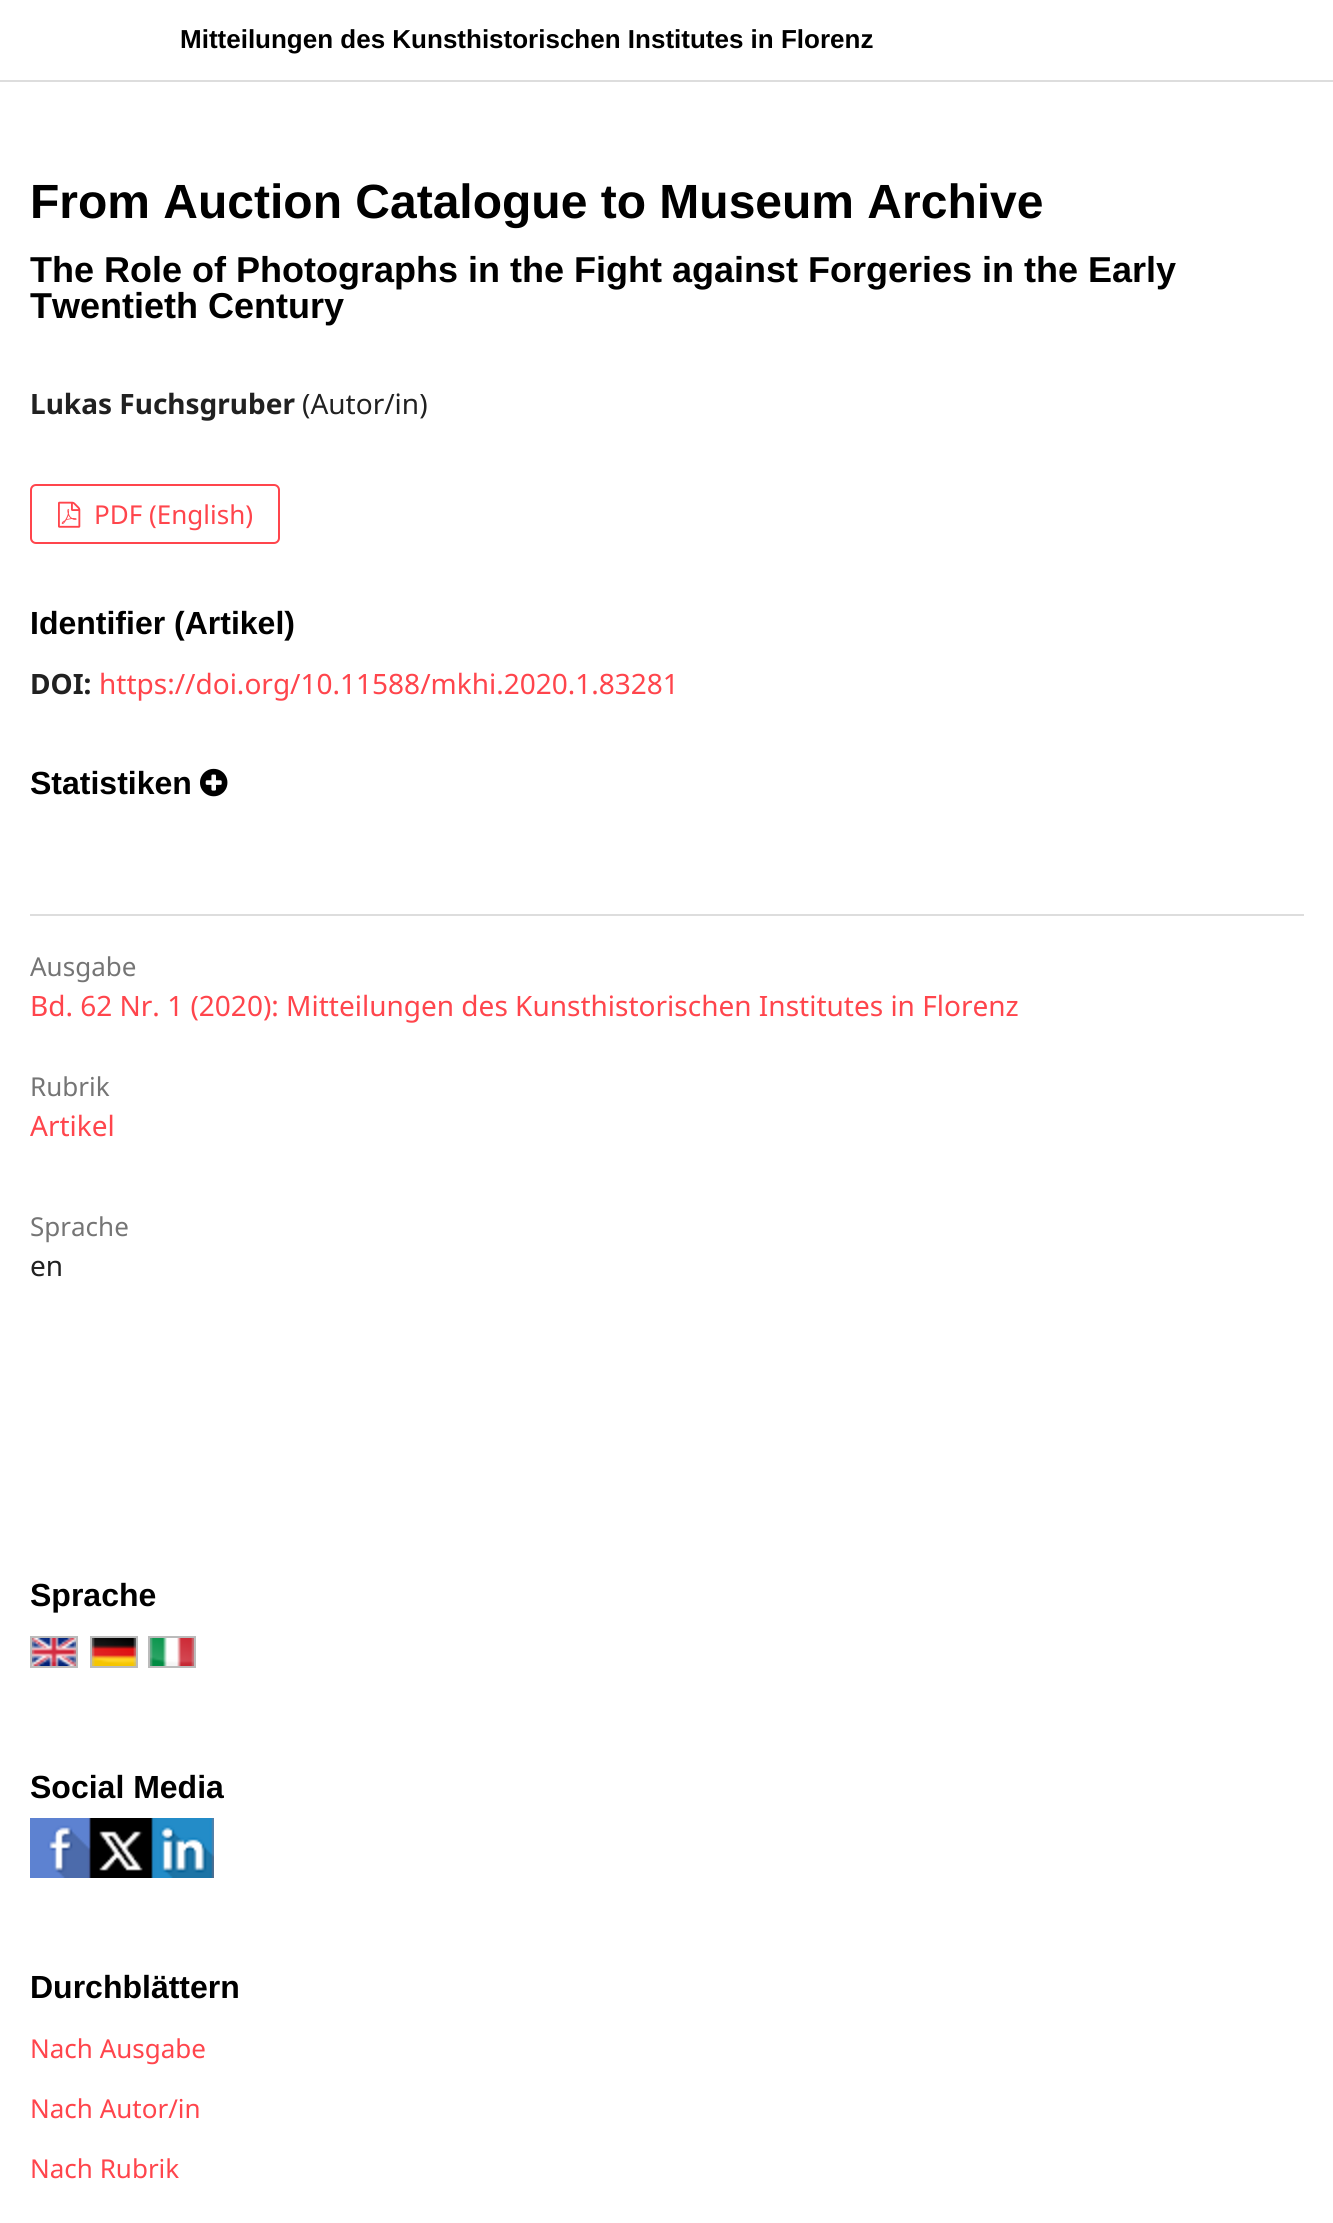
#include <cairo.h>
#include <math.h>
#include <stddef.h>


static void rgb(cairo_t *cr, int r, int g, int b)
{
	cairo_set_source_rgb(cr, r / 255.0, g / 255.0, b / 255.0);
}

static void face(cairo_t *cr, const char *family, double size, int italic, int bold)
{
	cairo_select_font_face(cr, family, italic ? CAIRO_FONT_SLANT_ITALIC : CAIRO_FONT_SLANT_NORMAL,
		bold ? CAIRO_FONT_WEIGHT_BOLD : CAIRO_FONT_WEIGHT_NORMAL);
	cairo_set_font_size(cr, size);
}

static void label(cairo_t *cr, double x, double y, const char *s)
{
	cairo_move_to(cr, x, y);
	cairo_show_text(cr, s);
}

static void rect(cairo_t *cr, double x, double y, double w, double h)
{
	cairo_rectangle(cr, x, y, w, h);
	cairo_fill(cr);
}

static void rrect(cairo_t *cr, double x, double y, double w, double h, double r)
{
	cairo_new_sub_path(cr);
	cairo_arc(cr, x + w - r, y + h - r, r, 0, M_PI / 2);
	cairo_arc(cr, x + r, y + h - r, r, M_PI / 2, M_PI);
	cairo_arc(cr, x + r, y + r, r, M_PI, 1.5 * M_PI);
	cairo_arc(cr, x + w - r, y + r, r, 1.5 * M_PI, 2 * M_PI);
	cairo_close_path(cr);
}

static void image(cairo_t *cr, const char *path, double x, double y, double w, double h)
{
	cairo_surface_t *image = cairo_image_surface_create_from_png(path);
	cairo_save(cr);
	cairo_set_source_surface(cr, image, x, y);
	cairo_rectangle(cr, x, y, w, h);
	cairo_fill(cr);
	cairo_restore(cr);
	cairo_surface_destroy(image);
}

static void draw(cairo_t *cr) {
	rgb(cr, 255, 255, 255);
	cairo_paint(cr);
	rgb(cr, 221, 221, 221);
	rect(cr, 0, 80, 1333, 2);
	face(cr, "Liberation Sans", 26, 0, 1);
	rgb(cr, 0, 0, 0);
	label(cr, 180, 48, "Mitteilungen des Kunsthistorischen Institutes in Florenz");
	face(cr, "Liberation Sans", 48, 0, 1);
	label(cr, 30, 218, "From Auction Catalogue to Museum Archive");
	face(cr, "Liberation Sans", 36, 0, 1);
	label(cr, 30, 282, "The Role of Photographs in the Fight against Forgeries in the Early");
	label(cr, 30, 318, "Twentieth Century");
	face(cr, "Noto Sans", 28, 0, 1);
	rgb(cr, 33, 33, 33);
	label(cr, 30, 414, "Lukas Fuchsgruber");
	face(cr, "Noto Sans", 28, 0, 0);
	label(cr, 302, 414, "(Autor/in)");
	rrect(cr, 31, 485, 248, 58, 5);
	rgb(cr, 255, 69, 76);
	cairo_stroke(cr);
	image(cr, "image0.png", 58, 501, 23, 27);
	face(cr, "Noto Sans", 26, 0, 0);
	label(cr, 94, 524, "PDF (English)");
	face(cr, "Liberation Sans", 32, 0, 1);
	rgb(cr, 0, 0, 0);
	label(cr, 30, 634, "Identifier (Artikel)");
	face(cr, "Noto Sans", 28, 0, 1);
	rgb(cr, 33, 33, 33);
	label(cr, 30, 694, "DOI:");
	face(cr, "Noto Sans", 28, 0, 0);
	rgb(cr, 255, 69, 76);
	label(cr, 99, 694, "https://doi.org/10.11588/mkhi.2020.1.83281");
	face(cr, "Liberation Sans", 32, 0, 1);
	rgb(cr, 0, 0, 0);
	label(cr, 30, 794, "Statistiken");
	image(cr, "image1.png", 200, 768, 28, 29);
	rgb(cr, 221, 221, 221);
	rect(cr, 30, 914, 1274, 2);
	face(cr, "Noto Sans", 26, 0, 0);
	rgb(cr, 117, 117, 117);
	label(cr, 30, 976, "Ausgabe");
	face(cr, "Noto Sans", 28, 0, 0);
	rgb(cr, 255, 69, 76);
	label(cr, 30, 1016, "Bd. 62 Nr. 1 (2020): Mitteilungen des Kunsthistorischen Institutes in Florenz");
	face(cr, "Noto Sans", 26, 0, 0);
	rgb(cr, 117, 117, 117);
	label(cr, 30, 1096, "Rubrik");
	face(cr, "Noto Sans", 28, 0, 0);
	rgb(cr, 255, 69, 76);
	label(cr, 30, 1136, "Artikel");
	face(cr, "Noto Sans", 26, 0, 0);
	rgb(cr, 117, 117, 117);
	label(cr, 30, 1236, "Sprache");
	face(cr, "Noto Sans", 28, 0, 0);
	rgb(cr, 33, 33, 33);
	label(cr, 30, 1276, "en");
	face(cr, "Liberation Sans", 32, 0, 1);
	rgb(cr, 0, 0, 0);
	label(cr, 30, 1606, "Sprache");
	cairo_rectangle(cr, 31, 1637, 46, 30);
	rgb(cr, 187, 187, 187);
	cairo_stroke(cr);
	image(cr, "image2.png", 32, 1638, 44, 28);
	cairo_rectangle(cr, 91, 1637, 46, 30);
	cairo_stroke(cr);
	image(cr, "image3.png", 92, 1638, 44, 28);
	cairo_rectangle(cr, 149, 1637, 46, 30);
	cairo_stroke(cr);
	image(cr, "image4.png", 150, 1638, 44, 28);
	rgb(cr, 0, 0, 0);
	label(cr, 30, 1798, "Social Media");
	image(cr, "image5.png", 30, 1818, 184, 60);
	label(cr, 30, 1998, "Durchblättern");
	face(cr, "Noto Sans", 26, 0, 0);
	rgb(cr, 255, 69, 76);
	label(cr, 30, 2058, "Nach Ausgabe");
	label(cr, 30, 2118, "Nach Autor/in");
	label(cr, 30, 2178, "Nach Rubrik");
}

int main(void) {
	cairo_surface_t *surface = cairo_image_surface_create(CAIRO_FORMAT_RGB24, 1333, 2223);
	cairo_t *cr = cairo_create(surface);
	cairo_font_options_t *options = cairo_font_options_create();
	cairo_font_options_set_hint_metrics(options, CAIRO_HINT_METRICS_OFF);
	cairo_font_options_set_hint_style(options, CAIRO_HINT_STYLE_NONE);
	cairo_set_font_options(cr, options);
	cairo_set_miter_limit(cr, 4);
	draw(cr);
	cairo_surface_write_to_png(surface, "render.png");
	cairo_font_options_destroy(options);
	cairo_destroy(cr);
	cairo_surface_destroy(surface);
	return 0;
}
